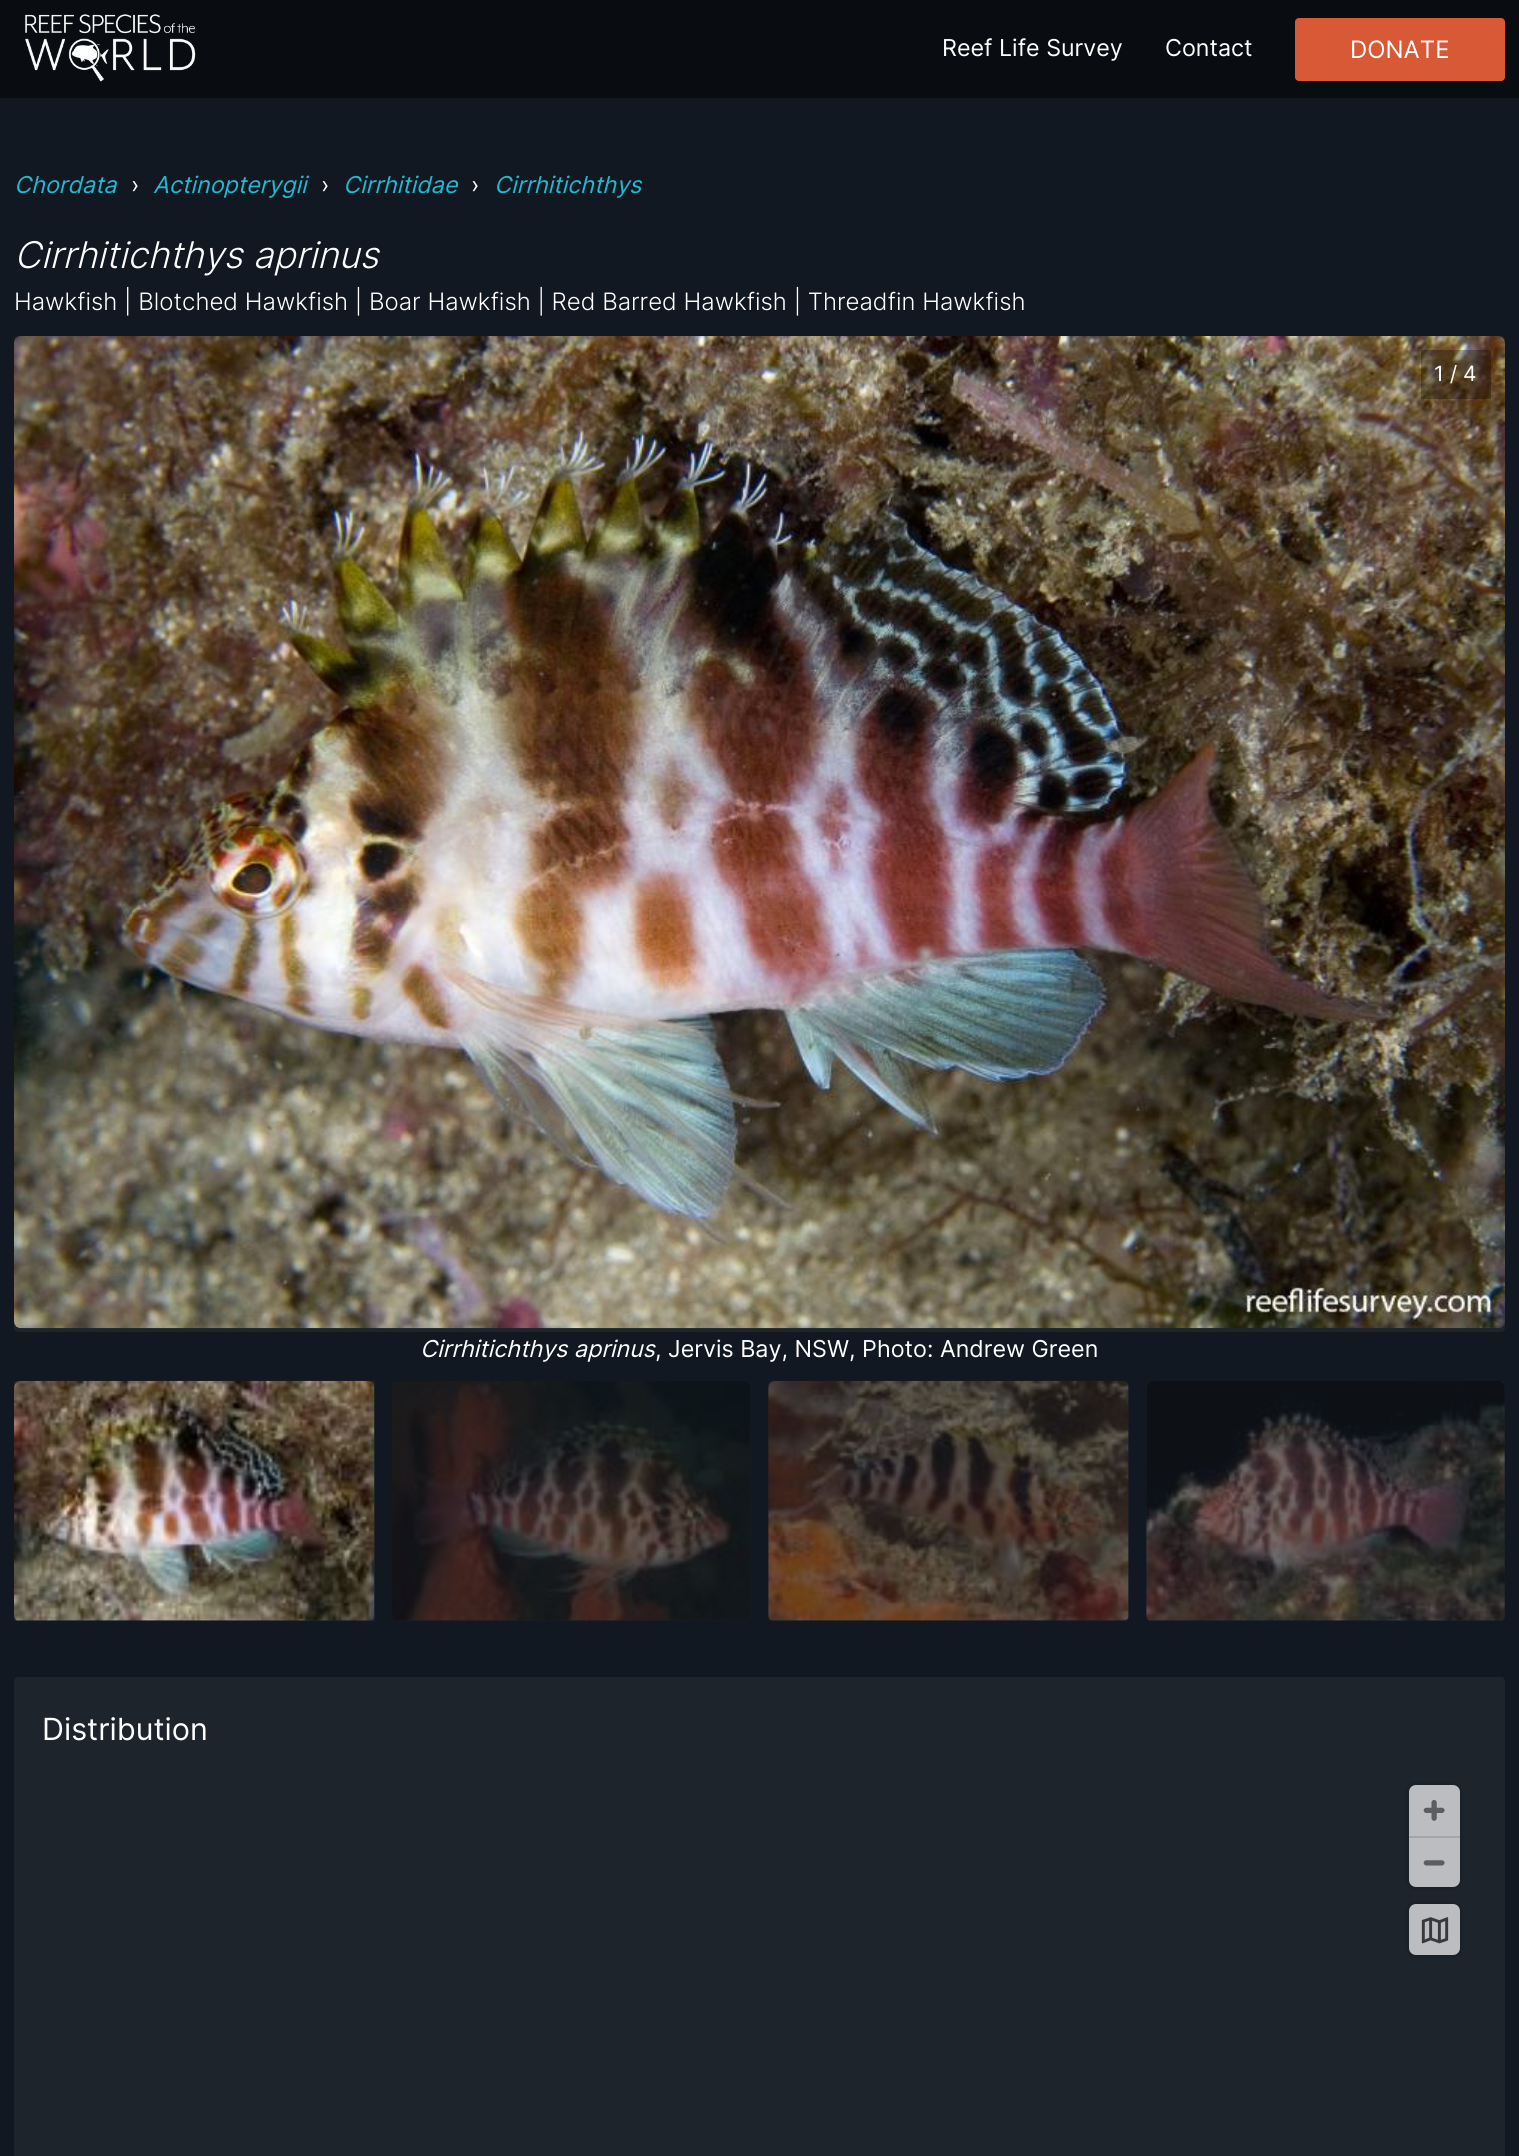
#include <cairo.h>
#include <math.h>
#include <stddef.h>


static void rgb(cairo_t *cr, int r, int g, int b)
{
	cairo_set_source_rgb(cr, r / 255.0, g / 255.0, b / 255.0);
}

static void face(cairo_t *cr, const char *family, double size, int italic, int bold)
{
	cairo_select_font_face(cr, family, italic ? CAIRO_FONT_SLANT_ITALIC : CAIRO_FONT_SLANT_NORMAL,
		bold ? CAIRO_FONT_WEIGHT_BOLD : CAIRO_FONT_WEIGHT_NORMAL);
	cairo_set_font_size(cr, size);
}

static void label(cairo_t *cr, double x, double y, const char *s)
{
	cairo_move_to(cr, x, y);
	cairo_show_text(cr, s);
}

static void rect(cairo_t *cr, double x, double y, double w, double h)
{
	cairo_rectangle(cr, x, y, w, h);
	cairo_fill(cr);
}

static void rrect(cairo_t *cr, double x, double y, double w, double h, double r)
{
	cairo_new_sub_path(cr);
	cairo_arc(cr, x + w - r, y + h - r, r, 0, M_PI / 2);
	cairo_arc(cr, x + r, y + h - r, r, M_PI / 2, M_PI);
	cairo_arc(cr, x + r, y + r, r, M_PI, 1.5 * M_PI);
	cairo_arc(cr, x + w - r, y + r, r, 1.5 * M_PI, 2 * M_PI);
	cairo_close_path(cr);
}

static void image(cairo_t *cr, const char *path, double x, double y, double w, double h)
{
	cairo_surface_t *image = cairo_image_surface_create_from_png(path);
	cairo_save(cr);
	cairo_set_source_surface(cr, image, x, y);
	cairo_rectangle(cr, x, y, w, h);
	cairo_fill(cr);
	cairo_restore(cr);
	cairo_surface_destroy(image);
}

static void draw(cairo_t *cr) {
	rgb(cr, 17, 24, 33);
	cairo_paint(cr);
	rgb(cr, 9, 13, 18);
	rect(cr, 0, 0, 1519, 98);
	image(cr, "image0.png", 25, 14, 171, 68);
	face(cr, "Inter", 23.3, 0, 0);
	rgb(cr, 255, 255, 255);
	label(cr, 942, 56, "Reef Life Survey");
	label(cr, 1165, 56, "Contact");
	rgb(cr, 216, 89, 53);
	rrect(cr, 1295, 18, 210, 63, 4);
	cairo_fill(cr);
	face(cr, "Inter", 24, 0, 0);
	rgb(cr, 255, 255, 255);
	label(cr, 1350, 58, "DONATE");
	face(cr, "Inter", 23.3, 1, 0);
	rgb(cr, 34, 184, 207);
	label(cr, 14, 193, "Chordata");
	face(cr, "Inter", 23.3, 0, 0);
	rgb(cr, 255, 255, 255);
	label(cr, 131, 193, "›");
	face(cr, "Inter", 23.3, 1, 0);
	rgb(cr, 34, 184, 207);
	label(cr, 153, 193, "Actinopterygii");
	face(cr, "Inter", 23.3, 0, 0);
	rgb(cr, 255, 255, 255);
	label(cr, 321, 193, "›");
	face(cr, "Inter", 23.3, 1, 0);
	rgb(cr, 34, 184, 207);
	label(cr, 343, 193, "Cirrhitidae");
	face(cr, "Inter", 23.3, 0, 0);
	rgb(cr, 255, 255, 255);
	label(cr, 471, 193, "›");
	face(cr, "Inter", 23.3, 1, 0);
	rgb(cr, 34, 184, 207);
	label(cr, 494, 193, "Cirrhitichthys");
	face(cr, "Inter Light", 36.75, 1, 0);
	rgb(cr, 255, 255, 255);
	label(cr, 14, 268, "Cirrhitichthys aprinus");
	face(cr, "Inter Light", 24, 0, 0);
	label(cr, 14, 310, "Hawkfish | Blotched Hawkfish | Boar Hawkfish | Red Barred Hawkfish | Threadfin Hawkfish");
	rgb(cr, 29, 36, 43);
	rrect(cr, 14, 336, 1491, 996, 4);
	cairo_fill(cr);
	image(cr, "image1.png", 14, 336, 1491, 993);
	cairo_set_source_rgba(cr, 0, 0, 0, 0.3);
	rect(cr, 1421, 350, 70, 49);
	face(cr, "Inter", 21, 0, 0);
	rgb(cr, 255, 255, 255);
	label(cr, 1434, 381, "1 / 4");
	face(cr, "Inter", 23.3, 1, 0);
	label(cr, 420, 1357, "Cirrhitichthys aprinus");
	face(cr, "Inter", 23.3, 0, 0);
	label(cr, 655, 1357, ", Jervis Bay, NSW, Photo: Andrew Green");
	cairo_set_source_rgba(cr, 1, 1, 1, 0.05);
	rect(cr, 14, 1381, 361, 240);
	image(cr, "image2.png", 14, 1380, 361, 241);
	rgb(cr, 22, 29, 37);
	rrect(cr, 392, 1381, 359, 240, 4);
	cairo_fill(cr);
	image(cr, "image3.png", 392, 1381, 359, 240);
	rrect(cr, 768, 1381, 361, 240, 4);
	cairo_fill(cr);
	image(cr, "image4.png", 768, 1380, 361, 241);
	rrect(cr, 1146, 1381, 359, 240, 4);
	cairo_fill(cr);
	image(cr, "image5.png", 1146, 1381, 359, 240);
	rgb(cr, 29, 36, 44);
	rrect(cr, 14, 1677, 1491, 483, 4);
	cairo_fill(cr);
	face(cr, "Inter", 30.5, 0, 0);
	rgb(cr, 255, 255, 255);
	label(cr, 42, 1740, "Distribution");
	rrect(cr, 1407, 1784, 54, 104, 9);
	rgb(cr, 27, 33, 41);
	cairo_set_line_width(cr, 4);
	cairo_stroke(cr);
	rgb(cr, 187, 189, 192);
	rrect(cr, 1409, 1785, 51, 102, 7);
	cairo_fill(cr);
	image(cr, "image6.png", 1423, 1799, 22, 22);
	rgb(cr, 163, 166, 168);
	rect(cr, 1409, 1836, 51, 2);
	image(cr, "image7.png", 1423, 1860, 22, 6);
	rrect(cr, 1407, 1903, 54, 53, 9);
	rgb(cr, 27, 33, 41);
	cairo_stroke(cr);
	rgb(cr, 187, 189, 192);
	rrect(cr, 1409, 1904, 51, 51, 7);
	cairo_fill(cr);
	image(cr, "image8.png", 1421, 1917, 28, 27);
}

int main(void) {
	cairo_surface_t *surface = cairo_image_surface_create(CAIRO_FORMAT_RGB24, 1519, 2156);
	cairo_t *cr = cairo_create(surface);
	cairo_font_options_t *options = cairo_font_options_create();
	cairo_font_options_set_hint_metrics(options, CAIRO_HINT_METRICS_OFF);
	cairo_font_options_set_hint_style(options, CAIRO_HINT_STYLE_NONE);
	cairo_set_font_options(cr, options);
	cairo_set_miter_limit(cr, 4);
	draw(cr);
	cairo_surface_write_to_png(surface, "render.png");
	cairo_font_options_destroy(options);
	cairo_destroy(cr);
	cairo_surface_destroy(surface);
	return 0;
}
